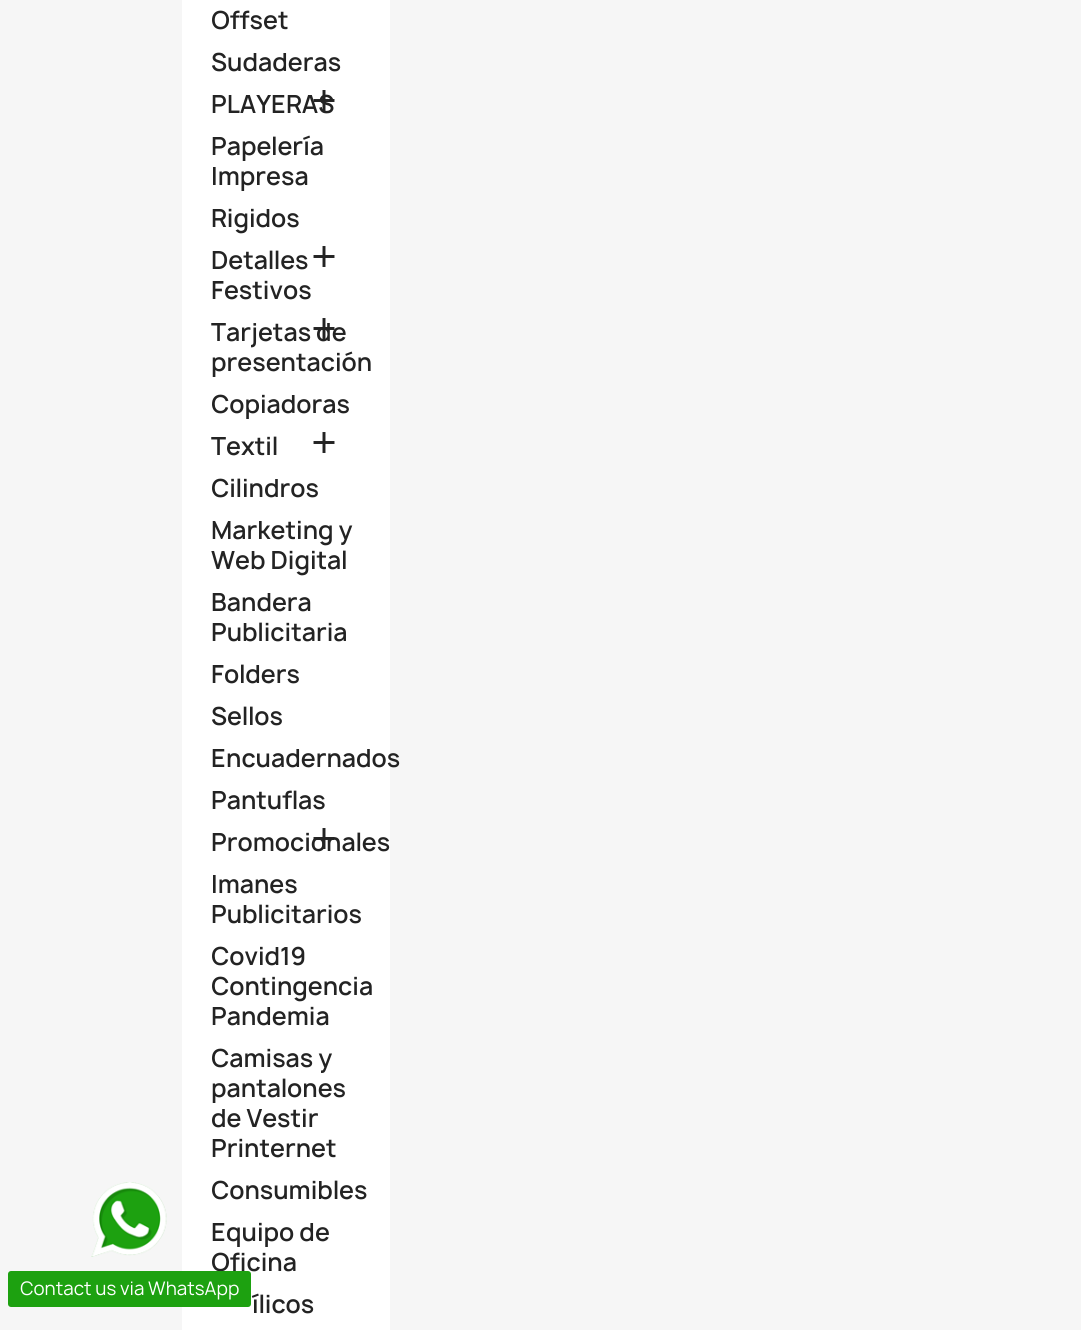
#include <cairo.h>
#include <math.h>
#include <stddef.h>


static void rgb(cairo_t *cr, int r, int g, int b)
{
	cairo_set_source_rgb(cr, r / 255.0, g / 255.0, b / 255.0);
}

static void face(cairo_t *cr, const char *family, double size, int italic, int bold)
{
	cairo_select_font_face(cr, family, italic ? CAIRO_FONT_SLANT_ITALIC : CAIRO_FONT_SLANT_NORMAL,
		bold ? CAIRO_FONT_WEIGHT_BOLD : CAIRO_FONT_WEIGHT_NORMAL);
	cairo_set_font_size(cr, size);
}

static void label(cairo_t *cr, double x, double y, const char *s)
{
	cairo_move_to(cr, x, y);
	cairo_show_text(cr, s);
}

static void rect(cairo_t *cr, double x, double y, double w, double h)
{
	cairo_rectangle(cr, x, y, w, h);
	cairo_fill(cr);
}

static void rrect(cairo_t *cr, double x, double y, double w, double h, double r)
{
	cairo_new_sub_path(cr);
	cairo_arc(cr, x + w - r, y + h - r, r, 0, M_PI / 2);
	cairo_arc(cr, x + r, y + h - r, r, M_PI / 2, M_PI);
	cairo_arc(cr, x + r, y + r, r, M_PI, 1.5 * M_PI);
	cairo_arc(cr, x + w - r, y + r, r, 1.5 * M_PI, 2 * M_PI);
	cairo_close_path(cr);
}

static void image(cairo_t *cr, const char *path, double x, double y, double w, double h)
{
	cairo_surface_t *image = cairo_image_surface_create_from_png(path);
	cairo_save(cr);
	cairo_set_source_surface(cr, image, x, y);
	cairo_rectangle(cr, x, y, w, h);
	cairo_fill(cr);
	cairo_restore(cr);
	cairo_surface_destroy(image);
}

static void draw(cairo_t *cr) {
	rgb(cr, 246, 246, 246);
	cairo_paint(cr);
	image(cr, "image0.png", 91, 1182, 76, 75);
	rgb(cr, 255, 255, 255);
	rect(cr, 182, 0, 208, 1330);
	face(cr, "Manrope SemiBold", 24, 0, 0);
	rgb(cr, 35, 35, 35);
	label(cr, 211, 1271, "Oficina");
	rgb(cr, 29, 161, 16);
	rrect(cr, 8, 1271, 243, 36, 3);
	cairo_fill(cr);
	face(cr, "Manrope", 18, 0, 0);
	rgb(cr, 255, 255, 255);
	label(cr, 20, 1295, "Contact us via WhatsApp");
	face(cr, "Manrope SemiBold", 24, 0, 0);
	rgb(cr, 35, 35, 35);
	label(cr, 211, 29, "Offset");
	label(cr, 211, 71, "Sudaderas");
	label(cr, 211, 113, "PLAYERAS");
	image(cr, "image1.png", 313, 90, 22, 21);
	label(cr, 211, 155, "Papelería");
	label(cr, 211, 185, "Impresa");
	label(cr, 211, 227, "Rigidos");
	label(cr, 211, 269, "Detalles");
	label(cr, 211, 299, "Festivos");
	image(cr, "image2.png", 313, 246, 22, 21);
	label(cr, 211, 341, "Tarjetas de");
	image(cr, "image3.png", 313, 318, 22, 21);
	label(cr, 211, 371, "presentación");
	label(cr, 211, 413, "Copiadoras");
	label(cr, 211, 455, "Textil");
	image(cr, "image2.png", 313, 432, 22, 21);
	label(cr, 211, 497, "Cilindros");
	label(cr, 211, 539, "Marketing y");
	label(cr, 211, 569, "Web Digital");
	label(cr, 211, 611, "Bandera");
	label(cr, 211, 641, "Publicitaria");
	label(cr, 211, 683, "Folders");
	label(cr, 211, 725, "Sellos");
	label(cr, 211, 767, "Encuadernados");
	label(cr, 211, 809, "Pantuflas");
	label(cr, 211, 851, "Promocionales");
	image(cr, "image4.png", 313, 828, 22, 21);
	label(cr, 211, 893, "Imanes");
	label(cr, 211, 923, "Publicitarios");
	label(cr, 211, 965, "Covid19");
	label(cr, 211, 995, "Contingencia");
	label(cr, 211, 1025, "Pandemia");
	label(cr, 211, 1067, "Camisas y");
	label(cr, 211, 1097, "pantalones");
	label(cr, 211, 1127, "de Vestir");
	label(cr, 211, 1157, "Printernet");
	label(cr, 211, 1199, "Consumibles");
	label(cr, 211, 1241, "Equipo de");
	label(cr, 252, 1313, "ílicos");
}

int main(void) {
	cairo_surface_t *surface = cairo_image_surface_create(CAIRO_FORMAT_RGB24, 1081, 1330);
	cairo_t *cr = cairo_create(surface);
	cairo_font_options_t *options = cairo_font_options_create();
	cairo_font_options_set_hint_metrics(options, CAIRO_HINT_METRICS_OFF);
	cairo_font_options_set_hint_style(options, CAIRO_HINT_STYLE_NONE);
	cairo_set_font_options(cr, options);
	cairo_set_miter_limit(cr, 4);
	draw(cr);
	cairo_surface_write_to_png(surface, "render.png");
	cairo_font_options_destroy(options);
	cairo_destroy(cr);
	cairo_surface_destroy(surface);
	return 0;
}
